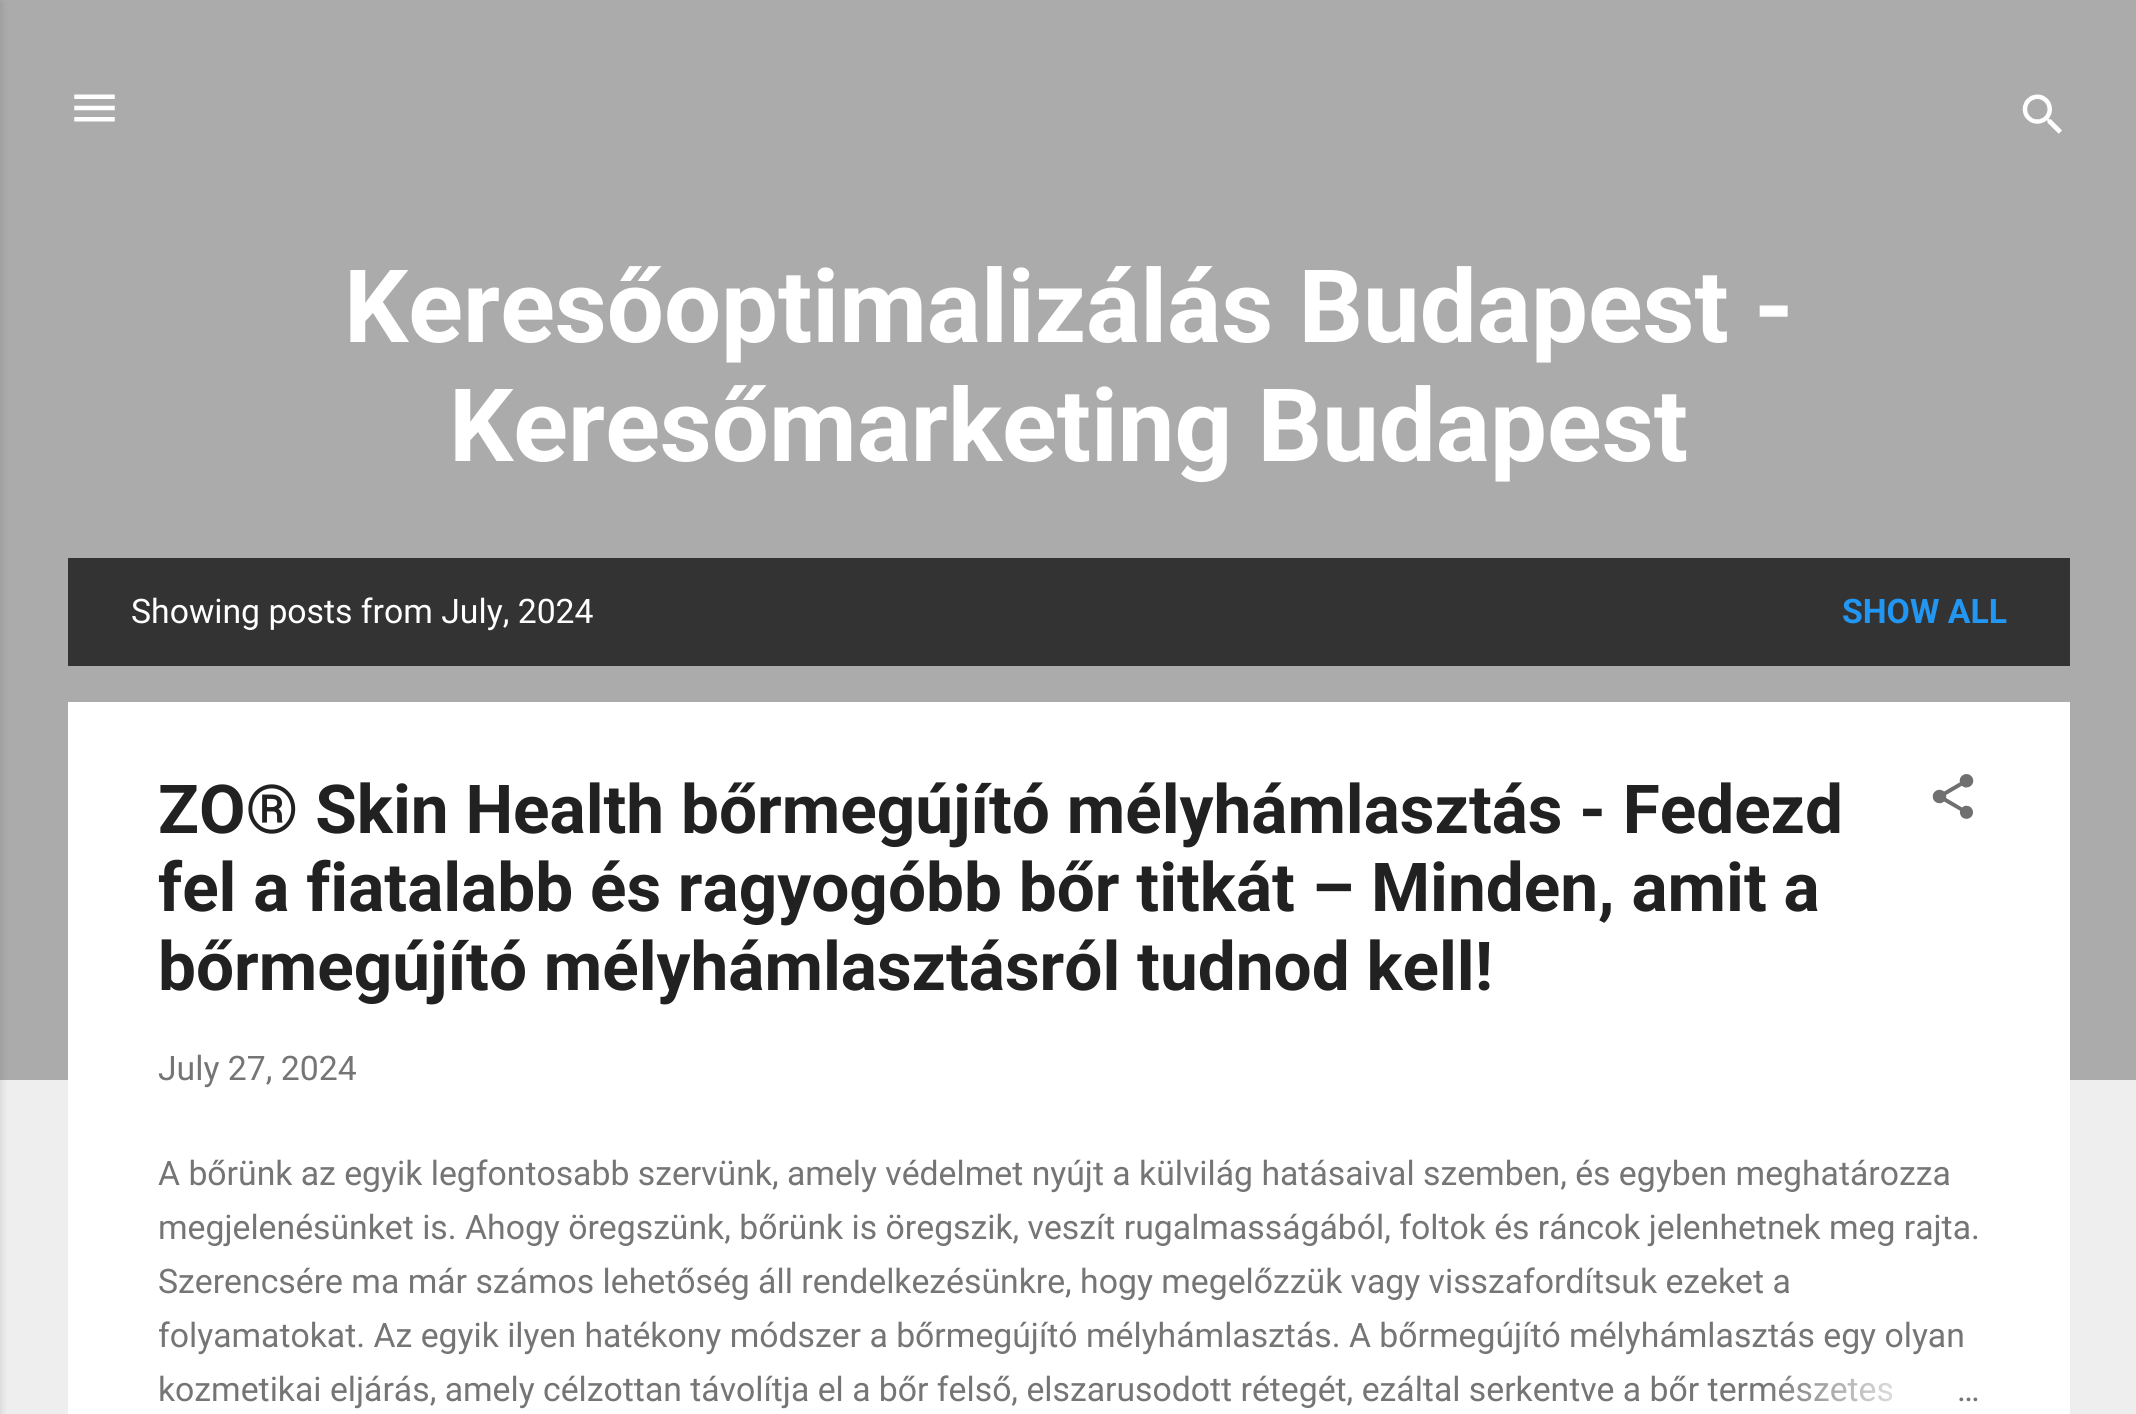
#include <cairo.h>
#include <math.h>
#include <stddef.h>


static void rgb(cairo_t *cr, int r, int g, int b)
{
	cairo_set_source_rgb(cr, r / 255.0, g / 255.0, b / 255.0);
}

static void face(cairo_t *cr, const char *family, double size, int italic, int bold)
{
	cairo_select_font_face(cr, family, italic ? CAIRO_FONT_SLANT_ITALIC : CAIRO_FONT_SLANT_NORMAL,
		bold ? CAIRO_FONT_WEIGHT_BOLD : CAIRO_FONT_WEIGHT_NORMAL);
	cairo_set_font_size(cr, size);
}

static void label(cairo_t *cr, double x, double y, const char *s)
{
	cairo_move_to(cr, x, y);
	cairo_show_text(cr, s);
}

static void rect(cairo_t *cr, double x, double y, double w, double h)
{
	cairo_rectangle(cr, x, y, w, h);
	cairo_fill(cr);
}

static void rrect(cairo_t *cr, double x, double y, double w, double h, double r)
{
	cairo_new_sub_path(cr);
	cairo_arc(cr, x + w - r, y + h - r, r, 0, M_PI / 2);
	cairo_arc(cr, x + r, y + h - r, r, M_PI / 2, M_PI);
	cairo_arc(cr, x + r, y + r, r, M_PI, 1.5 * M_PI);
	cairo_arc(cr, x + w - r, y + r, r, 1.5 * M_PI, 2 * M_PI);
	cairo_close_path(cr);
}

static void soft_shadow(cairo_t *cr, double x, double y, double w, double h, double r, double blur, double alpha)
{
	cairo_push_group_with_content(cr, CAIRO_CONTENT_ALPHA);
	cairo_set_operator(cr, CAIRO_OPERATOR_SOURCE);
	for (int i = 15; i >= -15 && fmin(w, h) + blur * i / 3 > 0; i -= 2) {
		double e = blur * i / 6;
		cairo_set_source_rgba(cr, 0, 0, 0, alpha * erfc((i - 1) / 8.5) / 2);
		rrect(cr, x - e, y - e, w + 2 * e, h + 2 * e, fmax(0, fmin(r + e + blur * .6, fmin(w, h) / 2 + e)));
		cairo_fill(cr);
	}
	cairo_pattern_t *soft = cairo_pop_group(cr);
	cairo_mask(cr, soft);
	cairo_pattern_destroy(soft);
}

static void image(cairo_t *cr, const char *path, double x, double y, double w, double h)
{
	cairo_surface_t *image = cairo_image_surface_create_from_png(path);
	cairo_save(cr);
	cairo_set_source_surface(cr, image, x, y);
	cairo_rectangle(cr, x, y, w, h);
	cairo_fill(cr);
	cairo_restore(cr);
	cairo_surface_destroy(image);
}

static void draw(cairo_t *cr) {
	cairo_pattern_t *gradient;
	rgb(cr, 238, 238, 238);
	cairo_paint(cr);
	rgb(cr, 171, 171, 171);
	rect(cr, 0, 0, 2136, 1080);
	rgb(cr, 0, 0, 0);
	soft_shadow(cr, -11, 2, 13, 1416, 0, 3.5, 0.1);
	image(cr, "image0.png", 74, 94, 41, 28);
	image(cr, "image1.png", 2022, 94, 40, 40);
	face(cr, "Roboto", 101.25, 0, 1);
	rgb(cr, 255, 255, 255);
	label(cr, 344, 342, "Keresőoptimalizálás Budapest -");
	label(cr, 449, 461, "Keresőmarketing Budapest");
	rgb(cr, 51, 51, 51);
	rect(cr, 68, 558, 2002, 108);
	face(cr, "Roboto", 33.75, 0, 0);
	rgb(cr, 255, 255, 255);
	label(cr, 131, 623, "Showing posts from July, 2024");
	face(cr, "Roboto", 33.75, 0, 1);
	rgb(cr, 33, 150, 243);
	label(cr, 1842, 623, "SHOW ALL");
	rgb(cr, 255, 255, 255);
	rect(cr, 68, 702, 2002, 712);
	face(cr, "Roboto", 67.5, 0, 1);
	rgb(cr, 33, 33, 33);
	label(cr, 158, 833, "ZO® Skin Health bőrmegújító mélyhámlasztás - Fedezd");
	label(cr, 158, 911, "fel a fiatalabb és ragyogóbb bőr titkát – Minden, amit a");
	label(cr, 158, 990, "bőrmegújító mélyhámlasztásról tudnod kell!");
	image(cr, "image2.png", 1932, 774, 42, 45);
	face(cr, "Roboto", 33.75, 0, 0);
	rgb(cr, 117, 117, 117);
	label(cr, 158, 1080, "July 27, 2024");
	label(cr, 158, 1185, "A bőrünk az egyik legfontosabb szervünk, amely védelmet nyújt a külvilág hatásaival szemben, és egyben meghatározza");
	label(cr, 158, 1239, "megjelenésünket is. Ahogy öregszünk, bőrünk is öregszik, veszít rugalmasságából, foltok és ráncok jelenhetnek meg rajta.");
	label(cr, 158, 1293, "Szerencsére ma már számos lehetőség áll rendelkezésünkre, hogy megelőzzük vagy visszafordítsuk ezeket a");
	label(cr, 158, 1347, "folyamatokat. Az egyik ilyen hatékony módszer a bőrmegújító mélyhámlasztás. A bőrmegújító mélyhámlasztás egy olyan");
	label(cr, 158, 1401, "kozmetikai eljárás, amely célzottan távolítja el a bőr felső, elszarusodott rétegét, ezáltal serkentve a bőr természetes");
	gradient = cairo_pattern_create_linear(1980, 1391, 1764, 1391);
	cairo_pattern_add_color_stop_rgba(gradient, 0, 1, 1, 1, 1);
	cairo_pattern_add_color_stop_rgba(gradient, 0.2, 1, 1, 1, 1);
	cairo_pattern_add_color_stop_rgba(gradient, 1, 1, 1, 1, 0);
	cairo_set_source(cr, gradient);
	cairo_pattern_destroy(gradient);
	rect(cr, 1768, 1375, 124, 27);
	rgb(cr, 117, 117, 117);
	label(cr, 1957, 1401, "…");
}

int main(void) {
	cairo_surface_t *surface = cairo_image_surface_create(CAIRO_FORMAT_RGB24, 2136, 1414);
	cairo_t *cr = cairo_create(surface);
	cairo_font_options_t *options = cairo_font_options_create();
	cairo_font_options_set_hint_metrics(options, CAIRO_HINT_METRICS_OFF);
	cairo_font_options_set_hint_style(options, CAIRO_HINT_STYLE_NONE);
	cairo_set_font_options(cr, options);
	cairo_set_miter_limit(cr, 4);
	draw(cr);
	cairo_surface_write_to_png(surface, "render.png");
	cairo_font_options_destroy(options);
	cairo_destroy(cr);
	cairo_surface_destroy(surface);
	return 0;
}
